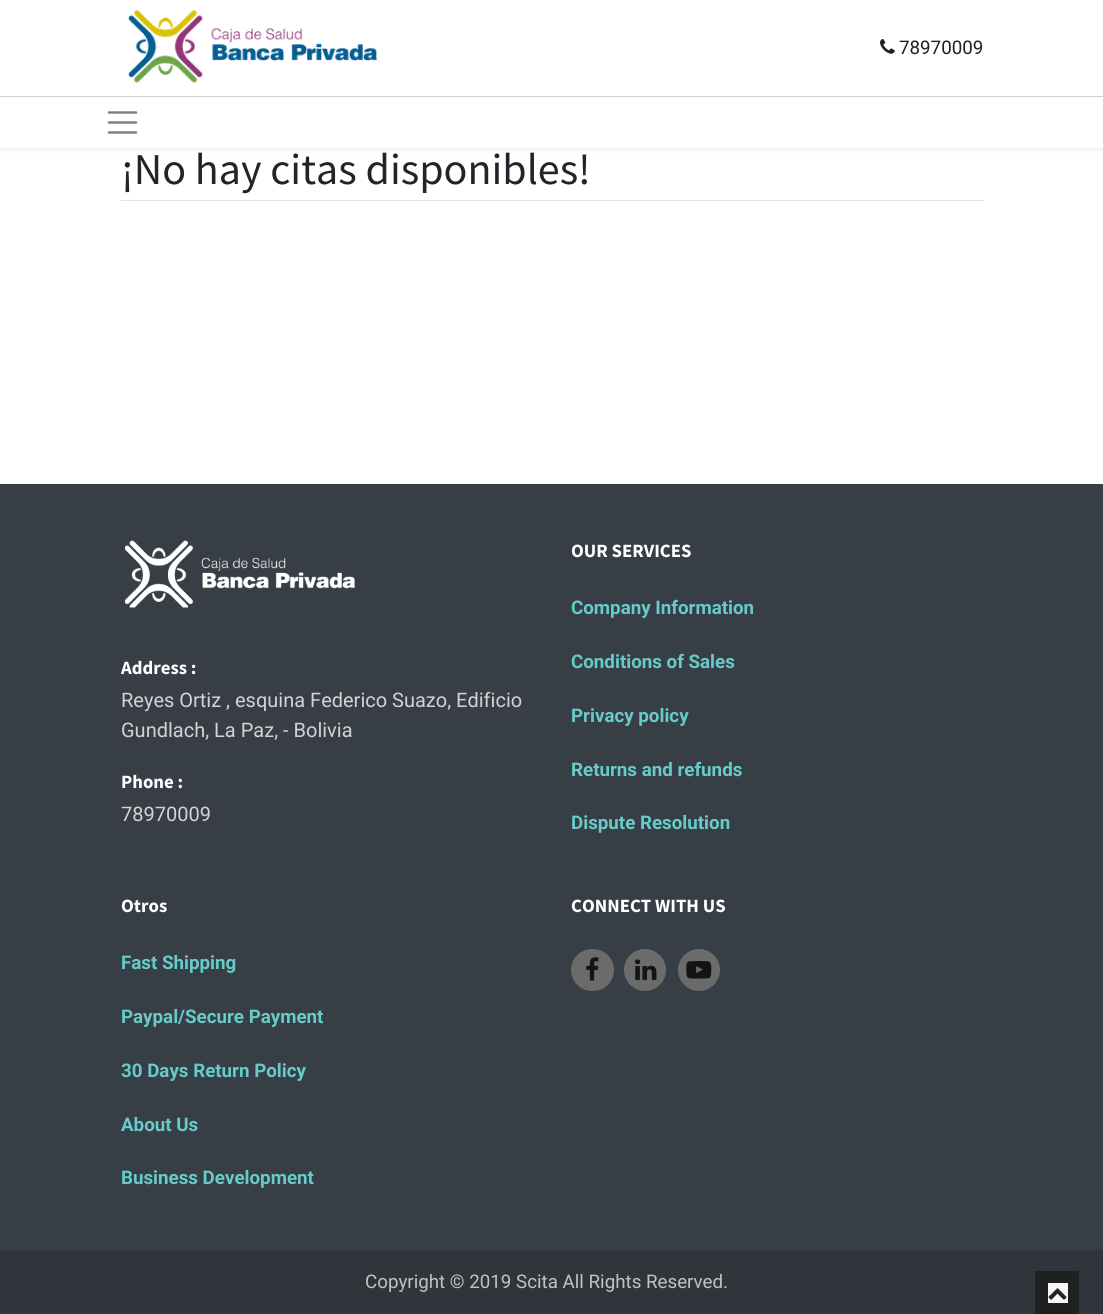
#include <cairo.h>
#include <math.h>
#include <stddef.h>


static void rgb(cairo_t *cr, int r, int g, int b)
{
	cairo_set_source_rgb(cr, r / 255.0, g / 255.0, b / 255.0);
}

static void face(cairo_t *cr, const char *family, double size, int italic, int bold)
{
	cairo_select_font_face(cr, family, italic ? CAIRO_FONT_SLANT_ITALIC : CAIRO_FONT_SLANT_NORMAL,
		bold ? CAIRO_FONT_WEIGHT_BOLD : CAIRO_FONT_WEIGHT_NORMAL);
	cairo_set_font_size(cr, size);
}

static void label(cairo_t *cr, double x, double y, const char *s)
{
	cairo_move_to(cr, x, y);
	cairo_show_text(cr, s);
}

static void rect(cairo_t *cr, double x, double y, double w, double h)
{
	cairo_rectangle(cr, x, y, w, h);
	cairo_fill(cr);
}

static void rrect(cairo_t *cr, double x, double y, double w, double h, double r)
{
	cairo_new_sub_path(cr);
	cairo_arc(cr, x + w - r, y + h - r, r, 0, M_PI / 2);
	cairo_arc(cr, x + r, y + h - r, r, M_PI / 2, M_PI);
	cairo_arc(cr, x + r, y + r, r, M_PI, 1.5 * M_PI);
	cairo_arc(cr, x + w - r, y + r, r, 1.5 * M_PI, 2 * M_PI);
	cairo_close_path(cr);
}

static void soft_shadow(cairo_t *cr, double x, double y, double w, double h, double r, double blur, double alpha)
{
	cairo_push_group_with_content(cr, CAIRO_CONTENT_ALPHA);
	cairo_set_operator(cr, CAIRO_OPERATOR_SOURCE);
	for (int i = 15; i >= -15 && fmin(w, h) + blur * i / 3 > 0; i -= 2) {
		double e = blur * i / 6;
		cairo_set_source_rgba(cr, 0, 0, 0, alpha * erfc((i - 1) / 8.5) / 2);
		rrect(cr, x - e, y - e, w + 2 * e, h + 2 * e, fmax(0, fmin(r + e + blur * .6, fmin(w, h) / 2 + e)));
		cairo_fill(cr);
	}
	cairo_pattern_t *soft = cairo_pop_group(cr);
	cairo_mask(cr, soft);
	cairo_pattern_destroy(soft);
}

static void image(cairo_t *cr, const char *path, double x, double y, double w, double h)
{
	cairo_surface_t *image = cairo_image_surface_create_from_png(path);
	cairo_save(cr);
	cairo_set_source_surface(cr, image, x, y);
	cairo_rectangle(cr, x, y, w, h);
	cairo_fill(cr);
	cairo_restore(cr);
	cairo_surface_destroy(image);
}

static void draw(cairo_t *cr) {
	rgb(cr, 255, 255, 255);
	cairo_paint(cr);
	image(cr, "image0.png", 128, 9, 250, 74);
	image(cr, "image1.png", 880, 39, 15, 15);
	face(cr, "Roboto", 18.75, 0, 0);
	rgb(cr, 32, 32, 32);
	label(cr, 899, 54, "78970009");
	cairo_save(cr);
	cairo_set_fill_rule(cr, CAIRO_FILL_RULE_EVEN_ODD);
	cairo_new_path(cr);
	cairo_move_to(cr, 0, 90);
	cairo_line_to(cr, 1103, 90);
	cairo_line_to(cr, 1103, 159);
	cairo_line_to(cr, 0, 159);
	cairo_close_path(cr);
	cairo_move_to(cr, 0, 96);
	cairo_line_to(cr, 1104, 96);
	cairo_line_to(cr, 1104, 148);
	cairo_line_to(cr, 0, 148);
	cairo_close_path(cr);
	cairo_clip(cr);
	rgb(cr, 0, 0, 0);
	soft_shadow(cr, 0, 99, 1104, 51, 0, 2.5, 0.07);
	cairo_restore(cr);
	rgb(cr, 208, 208, 208);
	rect(cr, 0, 96, 1103, 1);
	cairo_new_path(cr);
	cairo_move_to(cr, 109, 112.5);
	cairo_line_to(cr, 136, 112.5);
	cairo_move_to(cr, 109, 122.5);
	cairo_line_to(cr, 136, 122.5);
	cairo_move_to(cr, 109, 132.5);
	cairo_line_to(cr, 136, 132.5);
	rgb(cr, 128, 128, 128);
	cairo_set_line_width(cr, 2.5);
	cairo_set_line_cap(cr, CAIRO_LINE_CAP_ROUND);
	cairo_stroke(cr);
	rgb(cr, 222, 226, 230);
	rect(cr, 121, 200, 863, 1);
	face(cr, "Source Sans Pro", 44, 0, 0);
	rgb(cr, 33, 37, 41);
	label(cr, 121, 184, "¡No hay citas disponibles!");
	rgb(cr, 56, 62, 69);
	rect(cr, 0, 484, 1103, 766);
	image(cr, "image2.png", 125, 540, 231, 68);
	face(cr, "Source Sans Pro", 18.75, 0, 1);
	rgb(cr, 255, 255, 255);
	label(cr, 121, 674, "Address :");
	face(cr, "Roboto", 20, 0, 0);
	rgb(cr, 211, 211, 211);
	label(cr, 121, 707, "Reyes Ortiz , esquina Federico Suazo, Edificio");
	label(cr, 121, 737, "Gundlach, La Paz, - Bolivia");
	face(cr, "Source Sans Pro", 18.75, 0, 1);
	rgb(cr, 255, 255, 255);
	label(cr, 121, 788, "Phone :");
	face(cr, "Roboto", 20, 0, 0);
	rgb(cr, 211, 211, 211);
	label(cr, 121, 821, "78970009");
	face(cr, "Source Sans Pro", 18.75, 0, 1);
	rgb(cr, 255, 255, 255);
	label(cr, 571, 557, "OUR SERVICES");
	face(cr, "Roboto", 18.75, 0, 1);
	rgb(cr, 102, 204, 202);
	label(cr, 571, 614, "Company Information");
	label(cr, 571, 668, "Conditions of Sales");
	label(cr, 571, 722, "Privacy policy");
	label(cr, 571, 776, "Returns and refunds");
	label(cr, 571, 829, "Dispute Resolution");
	face(cr, "Source Sans Pro", 18.75, 0, 1);
	rgb(cr, 255, 255, 255);
	label(cr, 121, 912, "Otros");
	face(cr, "Roboto", 18.75, 0, 1);
	rgb(cr, 102, 204, 202);
	label(cr, 121, 969, "Fast Shipping");
	label(cr, 121, 1023, "Paypal/Secure Payment");
	label(cr, 121, 1077, "30 Days Return Policy");
	label(cr, 121, 1131, "About Us");
	label(cr, 121, 1184, "Business Development");
	face(cr, "Source Sans Pro", 18.75, 0, 1);
	rgb(cr, 255, 255, 255);
	label(cr, 571, 912, "CONNECT WITH US");
	rgb(cr, 107, 107, 107);
	rrect(cr, 571, 949, 43, 42, 21);
	cairo_fill(cr);
	image(cr, "image3.png", 586, 957, 13, 24);
	cairo_arc(cr, 645, 970, 21, 0, 2 * M_PI);
	cairo_fill(cr);
	image(cr, "image4.png", 635, 959, 22, 21);
	cairo_arc(cr, 699, 970, 21, 0, 2 * M_PI);
	cairo_fill(cr);
	image(cr, "image5.png", 686, 961, 26, 18);
	rgb(cr, 48, 53, 59);
	rect(cr, 0, 1250, 1103, 64);
	face(cr, "Roboto", 18.75, 0, 0);
	rgb(cr, 193, 194, 196);
	label(cr, 365, 1288, "Copyright © 2019 Scita All Rights Reserved.");
	rgb(cr, 32, 32, 32);
	rect(cr, 1035, 1271, 44, 43);
	rgb(cr, 246, 246, 246);
	rect(cr, 1048, 1283, 20, 20);
	image(cr, "image6.png", 1048, 1288, 19, 12);
}

int main(void) {
	cairo_surface_t *surface = cairo_image_surface_create(CAIRO_FORMAT_RGB24, 1103, 1314);
	cairo_t *cr = cairo_create(surface);
	cairo_font_options_t *options = cairo_font_options_create();
	cairo_font_options_set_hint_metrics(options, CAIRO_HINT_METRICS_OFF);
	cairo_font_options_set_hint_style(options, CAIRO_HINT_STYLE_NONE);
	cairo_set_font_options(cr, options);
	cairo_set_miter_limit(cr, 4);
	draw(cr);
	cairo_surface_write_to_png(surface, "render.png");
	cairo_font_options_destroy(options);
	cairo_destroy(cr);
	cairo_surface_destroy(surface);
	return 0;
}
